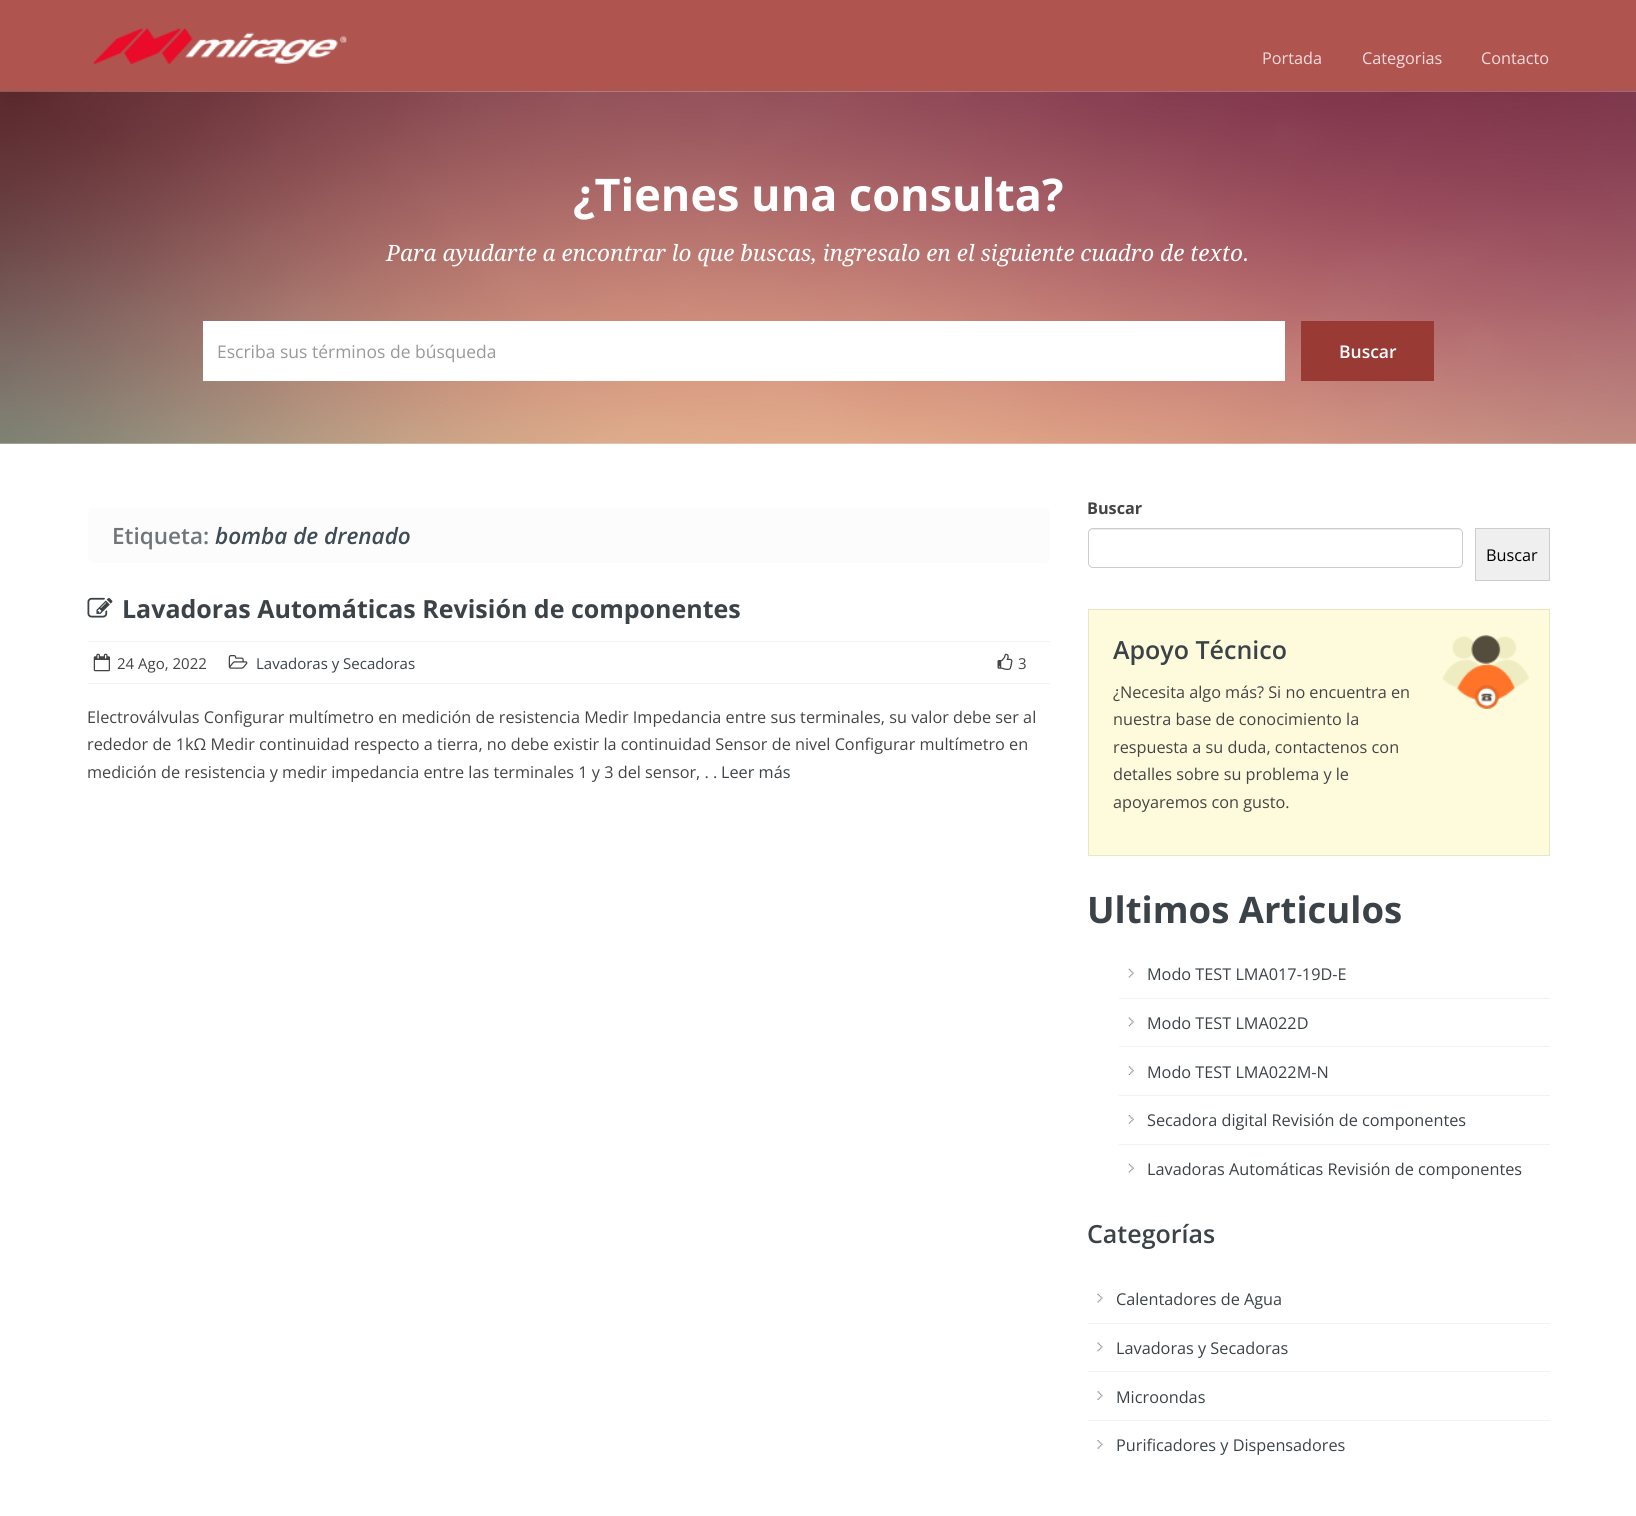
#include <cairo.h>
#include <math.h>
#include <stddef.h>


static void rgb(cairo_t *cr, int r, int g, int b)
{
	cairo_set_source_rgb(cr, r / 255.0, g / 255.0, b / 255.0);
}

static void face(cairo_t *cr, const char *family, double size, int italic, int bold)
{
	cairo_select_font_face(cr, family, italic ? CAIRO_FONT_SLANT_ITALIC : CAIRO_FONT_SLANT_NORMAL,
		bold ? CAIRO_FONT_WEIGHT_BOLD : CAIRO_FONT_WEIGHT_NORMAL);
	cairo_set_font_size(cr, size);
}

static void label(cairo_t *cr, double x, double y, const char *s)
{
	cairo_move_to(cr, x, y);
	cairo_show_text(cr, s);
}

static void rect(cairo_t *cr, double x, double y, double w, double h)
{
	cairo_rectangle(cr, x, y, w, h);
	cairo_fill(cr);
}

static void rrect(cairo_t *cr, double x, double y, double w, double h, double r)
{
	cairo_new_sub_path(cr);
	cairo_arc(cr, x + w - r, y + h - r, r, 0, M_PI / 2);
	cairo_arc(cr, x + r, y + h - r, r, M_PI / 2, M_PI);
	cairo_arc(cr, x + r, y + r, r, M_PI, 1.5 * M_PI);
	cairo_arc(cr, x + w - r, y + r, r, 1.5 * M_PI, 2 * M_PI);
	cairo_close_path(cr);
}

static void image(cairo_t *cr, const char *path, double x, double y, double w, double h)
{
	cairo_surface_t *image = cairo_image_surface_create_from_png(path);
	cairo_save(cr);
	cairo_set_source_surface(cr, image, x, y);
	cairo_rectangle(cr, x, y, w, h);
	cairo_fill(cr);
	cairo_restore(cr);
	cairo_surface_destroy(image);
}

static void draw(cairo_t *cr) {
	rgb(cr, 255, 255, 255);
	cairo_paint(cr);
	rgb(cr, 176, 84, 79);
	rect(cr, 0, 0, 1636, 91);
	image(cr, "image0.png", 93, 28, 254, 36);
	face(cr, "Open Sans", 16.25, 0, 0);
	rgb(cr, 246, 221, 221);
	label(cr, 1262, 64, "Portada");
	label(cr, 1362, 64, "Categorias");
	label(cr, 1481, 64, "Contacto");
	image(cr, "image1.png", 0, 91, 1636, 353);
	face(cr, "Open Sans", 45, 0, 1);
	rgb(cr, 255, 255, 255);
	label(cr, 573, 211, "¿Tienes una consulta?");
	face(cr, "Droid Serif", 22.5, 1, 0);
	label(cr, 386, 261, "Para ayudarte a encontrar lo que buscas, ingresalo en el siguiente cuadro de texto.");
	rect(cr, 203, 321, 1082, 60);
	face(cr, "Open Sans", 17.5, 0, 0);
	rgb(cr, 153, 153, 153);
	label(cr, 217, 358, "Escriba sus términos de búsqueda");
	rgb(cr, 153, 58, 52);
	rect(cr, 1301, 321, 133, 60);
	face(cr, "Open Sans SemiBold", 17.5, 0, 0);
	rgb(cr, 255, 255, 255);
	label(cr, 1339, 358, "Buscar");
	rgb(cr, 252, 252, 252);
	rrect(cr, 88, 508, 962, 55, 5);
	cairo_fill(cr);
	face(cr, "Open Sans SemiBold", 22.5, 0, 0);
	rgb(cr, 111, 117, 121);
	label(cr, 112, 544, "Etiqueta:");
	face(cr, "Open Sans SemiBold", 22.5, 1, 0);
	rgb(cr, 63, 75, 85);
	label(cr, 215, 544, "bomba de drenado");
	image(cr, "image2.png", 87, 597, 26, 21);
	face(cr, "Open Sans", 25, 0, 1);
	rgb(cr, 59, 67, 72);
	label(cr, 122, 618, "Lavadoras Automáticas Revisión de componentes");
	rgb(cr, 242, 242, 242);
	rect(cr, 88, 641, 962, 1);
	rect(cr, 88, 683, 962, 1);
	image(cr, "image3.png", 93, 653, 17, 19);
	face(cr, "Open Sans", 15, 0, 0);
	rgb(cr, 68, 68, 68);
	label(cr, 117, 669, "24 Ago, 2022");
	image(cr, "image4.png", 228, 655, 20, 14);
	rgb(cr, 59, 67, 72);
	label(cr, 256, 669, "Lavadoras y Secadoras");
	image(cr, "image5.png", 997, 653, 16, 17);
	rgb(cr, 68, 68, 68);
	label(cr, 1018, 669, "3");
	face(cr, "Open Sans", 16.25, 0, 0);
	label(cr, 87, 723, "Electroválvulas Configurar multímetro en medición de resistencia Medir Impedancia entre sus terminales, su valor debe ser al");
	label(cr, 87, 750, "rededor de 1kΩ Medir continuidad respecto a tierra, no debe existir la continuidad Sensor de nivel Configurar multímetro en");
	label(cr, 87, 778, "medición de resistencia y medir impedancia entre las terminales 1 y 3 del sensor, . .");
	rgb(cr, 59, 67, 72);
	label(cr, 721, 778, "Leer más");
	face(cr, "Open Sans", 16.25, 0, 1);
	rgb(cr, 68, 68, 68);
	label(cr, 1087, 514, "Buscar");
	rgb(cr, 236, 236, 236);
	cairo_new_path(cr);
	cairo_move_to(cr, 1092, 530);
	cairo_line_to(cr, 1458, 530);
	cairo_curve_to(cr, 1460, 530, 1461, 532, 1461, 534);
	cairo_curve_to(cr, 1461, 531, 1460, 529, 1457, 529);
	cairo_line_to(cr, 1093, 529);
	cairo_curve_to(cr, 1090, 529, 1089, 531, 1089, 534);
	cairo_curve_to(cr, 1089, 532, 1090, 530, 1092, 530);
	cairo_close_path(cr);
	cairo_fill(cr);
	rrect(cr, 1088.5, 528.5, 374, 39, 4.5);
	rgb(cr, 204, 204, 204);
	cairo_set_line_width(cr, 1);
	cairo_stroke(cr);
	rgb(cr, 239, 239, 239);
	cairo_rectangle(cr, 1475.5, 528.5, 74, 52);
	cairo_fill_preserve(cr);
	rgb(cr, 204, 204, 204);
	cairo_stroke(cr);
	face(cr, "Open Sans", 16.25, 0, 0);
	rgb(cr, 0, 0, 0);
	label(cr, 1486, 561, "Buscar");
	rgb(cr, 254, 251, 220);
	rect(cr, 1089, 610, 460, 245);
	image(cr, "image6.png", 1442, 635, 87, 74);
	cairo_rectangle(cr, 1088.5, 609.5, 461, 246);
	rgb(cr, 233, 230, 196);
	cairo_stroke(cr);
	face(cr, "Open Sans SemiBold", 25, 0, 0);
	rgb(cr, 59, 67, 72);
	label(cr, 1113, 659, "Apoyo Técnico");
	face(cr, "Open Sans", 16.25, 0, 0);
	rgb(cr, 68, 68, 68);
	label(cr, 1113, 698, "¿Necesita algo más? Si no encuentra en");
	label(cr, 1113, 725, "nuestra base de conocimiento la");
	label(cr, 1113, 753, "respuesta a su duda, contactenos con");
	label(cr, 1113, 780, "detalles sobre su problema y le");
	label(cr, 1113, 808, "apoyaremos con gusto.");
	face(cr, "Open Sans", 36.5, 0, 1);
	rgb(cr, 59, 67, 72);
	label(cr, 1087, 923, "Ultimos Articulos");
	image(cr, "image7.png", 1128, 968, 6, 10);
	rgb(cr, 242, 242, 242);
	rect(cr, 1119, 998, 431, 1);
	face(cr, "Open Sans", 16.25, 0, 0);
	rgb(cr, 59, 67, 72);
	label(cr, 1147, 980, "Modo TEST LMA017-19D-E");
	image(cr, "image8.png", 1128, 1017, 6, 10);
	rgb(cr, 242, 242, 242);
	rect(cr, 1119, 1046, 431, 1);
	rgb(cr, 59, 67, 72);
	label(cr, 1147, 1029, "Modo TEST LMA022D");
	image(cr, "image9.png", 1128, 1066, 6, 9);
	rgb(cr, 242, 242, 242);
	rect(cr, 1119, 1095, 431, 1);
	rgb(cr, 59, 67, 72);
	label(cr, 1147, 1078, "Modo TEST LMA022M-N");
	image(cr, "image10.png", 1128, 1115, 6, 9);
	rgb(cr, 242, 242, 242);
	rect(cr, 1119, 1144, 431, 1);
	rgb(cr, 59, 67, 72);
	label(cr, 1147, 1126, "Secadora digital Revisión de componentes");
	image(cr, "image7.png", 1128, 1163, 6, 10);
	label(cr, 1147, 1175, "Lavadoras Automáticas Revisión de componentes");
	face(cr, "Open Sans SemiBold", 25, 0, 0);
	label(cr, 1087, 1243, "Categorías");
	image(cr, "image11.png", 1097, 1293, 6, 10);
	rgb(cr, 242, 242, 242);
	rect(cr, 1088, 1323, 462, 1);
	face(cr, "Open Sans", 16.25, 0, 0);
	rgb(cr, 59, 67, 72);
	label(cr, 1116, 1305, "Calentadores de Agua");
	image(cr, "image12.png", 1097, 1342, 6, 10);
	rgb(cr, 242, 242, 242);
	rect(cr, 1088, 1371, 462, 1);
	rgb(cr, 59, 67, 72);
	label(cr, 1116, 1354, "Lavadoras y Secadoras");
	image(cr, "image13.png", 1097, 1391, 6, 9);
	rgb(cr, 242, 242, 242);
	rect(cr, 1088, 1420, 462, 1);
	rgb(cr, 59, 67, 72);
	label(cr, 1116, 1403, "Microondas");
	image(cr, "image14.png", 1097, 1440, 6, 9);
	label(cr, 1116, 1451, "Purificadores y Dispensadores");
}

int main(void) {
	cairo_surface_t *surface = cairo_image_surface_create(CAIRO_FORMAT_RGB24, 1636, 1516);
	cairo_t *cr = cairo_create(surface);
	cairo_font_options_t *options = cairo_font_options_create();
	cairo_font_options_set_hint_metrics(options, CAIRO_HINT_METRICS_OFF);
	cairo_font_options_set_hint_style(options, CAIRO_HINT_STYLE_NONE);
	cairo_set_font_options(cr, options);
	cairo_set_miter_limit(cr, 4);
	draw(cr);
	cairo_surface_write_to_png(surface, "render.png");
	cairo_font_options_destroy(options);
	cairo_destroy(cr);
	cairo_surface_destroy(surface);
	return 0;
}
